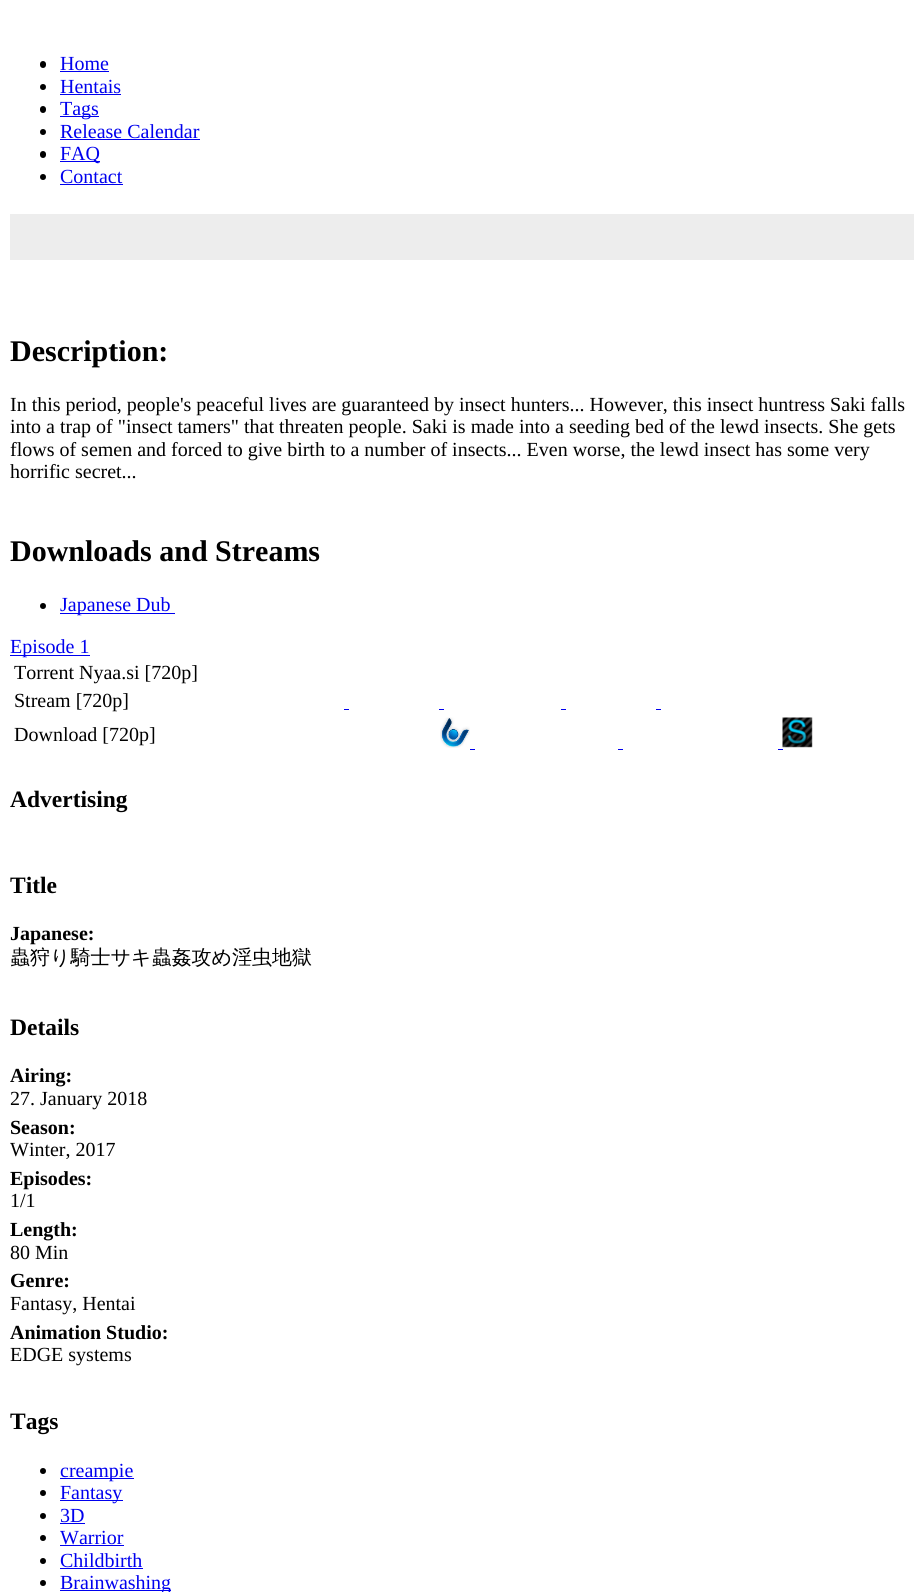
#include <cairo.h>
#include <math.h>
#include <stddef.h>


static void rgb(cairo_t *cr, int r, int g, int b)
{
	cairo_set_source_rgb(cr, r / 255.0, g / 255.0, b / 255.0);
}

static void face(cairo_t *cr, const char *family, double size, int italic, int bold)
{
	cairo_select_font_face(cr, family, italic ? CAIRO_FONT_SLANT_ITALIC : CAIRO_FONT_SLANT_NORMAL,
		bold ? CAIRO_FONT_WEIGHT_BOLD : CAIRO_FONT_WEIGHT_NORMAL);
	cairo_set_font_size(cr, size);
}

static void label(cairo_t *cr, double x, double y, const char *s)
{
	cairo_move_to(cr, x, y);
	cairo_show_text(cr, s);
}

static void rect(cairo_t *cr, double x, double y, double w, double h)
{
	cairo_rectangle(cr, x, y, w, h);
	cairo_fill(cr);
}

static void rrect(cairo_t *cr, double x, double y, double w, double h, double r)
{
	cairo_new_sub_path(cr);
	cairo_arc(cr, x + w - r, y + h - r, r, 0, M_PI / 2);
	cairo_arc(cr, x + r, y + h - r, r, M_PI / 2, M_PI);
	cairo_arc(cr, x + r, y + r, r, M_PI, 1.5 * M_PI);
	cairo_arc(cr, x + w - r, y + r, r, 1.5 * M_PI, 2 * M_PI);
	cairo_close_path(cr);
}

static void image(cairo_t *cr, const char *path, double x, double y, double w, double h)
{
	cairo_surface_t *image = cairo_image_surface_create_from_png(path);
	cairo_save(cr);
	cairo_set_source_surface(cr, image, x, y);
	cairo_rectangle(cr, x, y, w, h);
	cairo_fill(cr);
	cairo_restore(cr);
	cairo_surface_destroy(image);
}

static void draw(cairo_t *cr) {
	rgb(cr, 255, 255, 255);
	cairo_paint(cr);
	rgb(cr, 0, 0, 0);
	rrect(cr, 40, 61, 6, 7, 3);
	cairo_fill(cr);
	face(cr, "Liberation Serif", 20, 0, 0);
	rgb(cr, 0, 0, 238);
	label(cr, 60, 70, "Home");
	rect(cr, 60, 71, 49, 1);
	rgb(cr, 0, 0, 0);
	cairo_new_path(cr);
	cairo_arc(cr, 43, 87, 3, 0, 2 * M_PI);
	cairo_fill(cr);
	rgb(cr, 0, 0, 238);
	label(cr, 60, 93, "Hentais");
	rect(cr, 60, 94, 61, 1);
	rgb(cr, 0, 0, 0);
	rrect(cr, 40, 106, 6, 7, 3);
	cairo_fill(cr);
	rgb(cr, 0, 0, 238);
	rect(cr, 60, 116, 39, 1);
	label(cr, 60, 115, "Tags");
	rgb(cr, 0, 0, 0);
	cairo_new_path(cr);
	cairo_arc(cr, 43, 132, 3, 0, 2 * M_PI);
	cairo_fill(cr);
	rgb(cr, 0, 0, 238);
	label(cr, 60, 138, "Release Calendar");
	rect(cr, 60, 139, 140, 1);
	rgb(cr, 0, 0, 0);
	rrect(cr, 40, 151, 6, 7, 3);
	cairo_fill(cr);
	rgb(cr, 0, 0, 238);
	rect(cr, 60, 161, 40, 1);
	label(cr, 60, 160, "FAQ");
	rgb(cr, 0, 0, 0);
	cairo_new_path(cr);
	cairo_arc(cr, 43, 177, 3, 0, 2 * M_PI);
	cairo_fill(cr);
	rgb(cr, 0, 0, 238);
	label(cr, 60, 183, "Contact");
	rect(cr, 60, 184, 63, 1);
	rgb(cr, 237, 237, 237);
	rect(cr, 10, 214, 904, 46);
	face(cr, "Liberation Serif", 30, 0, 1);
	rgb(cr, 0, 0, 0);
	label(cr, 10, 361, "Description:");
	face(cr, "Liberation Serif", 20, 0, 0);
	label(cr, 10, 411, "In this period, people's peaceful lives are guaranteed by insect hunters... However, this insect huntress Saki falls");
	label(cr, 10, 433, "into a trap of \"insect tamers\" that threaten people. Saki is made into a seeding bed of the lewd insects. She gets");
	label(cr, 10, 456, "flows of semen and forced to give birth to a number of insects... Even worse, the lewd insect has some very");
	label(cr, 10, 478, "horrific secret...");
	face(cr, "Liberation Serif", 30, 0, 1);
	label(cr, 10, 561, "Downloads and Streams");
	cairo_new_path(cr);
	cairo_arc(cr, 43, 606, 3, 0, 2 * M_PI);
	cairo_fill(cr);
	rgb(cr, 0, 0, 238);
	rect(cr, 60, 613, 115, 1);
	face(cr, "Liberation Serif", 20, 0, 0);
	label(cr, 60, 611, "Japanese Dub");
	rect(cr, 10, 655, 80, 1);
	label(cr, 10, 653, "Episode 1");
	rgb(cr, 0, 0, 0);
	label(cr, 14, 679, "Torrent Nyaa.si [720p]");
	label(cr, 14, 707, "Stream [720p]");
	rgb(cr, 0, 0, 238);
	rect(cr, 344, 709, 5, 1);
	rect(cr, 439, 709, 5, 1);
	rect(cr, 561, 709, 5, 1);
	rect(cr, 656, 709, 5, 1);
	rgb(cr, 0, 0, 0);
	label(cr, 14, 741, "Download [720p]");
	image(cr, "image0.png", 440, 717, 30, 31);
	image(cr, "image1.png", 782, 717, 31, 31);
	rgb(cr, 0, 0, 238);
	rect(cr, 470, 749, 5, 1);
	rect(cr, 618, 749, 5, 1);
	rect(cr, 778, 749, 5, 1);
	face(cr, "Liberation Serif", 23.5, 0, 1);
	rgb(cr, 0, 0, 0);
	label(cr, 10, 807, "Advertising");
	label(cr, 10, 893, "Title");
	face(cr, "Liberation Serif", 20, 0, 1);
	label(cr, 10, 940, "Japanese:");
	face(cr, "WenQuanYi Zen Hei Medium", 20, 0, 0);
	label(cr, 10, 964, "蟲狩り騎士サキ蟲姦攻め淫虫地獄");
	face(cr, "Liberation Serif", 23.5, 0, 1);
	label(cr, 10, 1035, "Details");
	face(cr, "Liberation Serif", 20, 0, 1);
	label(cr, 10, 1082, "Airing:");
	face(cr, "Liberation Serif", 20, 0, 0);
	label(cr, 10, 1105, "27. January 2018");
	face(cr, "Liberation Serif", 20, 0, 1);
	label(cr, 10, 1134, "Season:");
	face(cr, "Liberation Serif", 20, 0, 0);
	label(cr, 10, 1156, "Winter, 2017");
	face(cr, "Liberation Serif", 20, 0, 1);
	label(cr, 10, 1185, "Episodes:");
	face(cr, "Liberation Serif", 20, 0, 0);
	label(cr, 10, 1207, "1/1");
	face(cr, "Liberation Serif", 20, 0, 1);
	label(cr, 10, 1236, "Length:");
	face(cr, "Liberation Serif", 20, 0, 0);
	label(cr, 10, 1259, "80 Min");
	face(cr, "Liberation Serif", 20, 0, 1);
	label(cr, 10, 1287, "Genre:");
	face(cr, "Liberation Serif", 20, 0, 0);
	label(cr, 10, 1310, "Fantasy, Hentai");
	face(cr, "Liberation Serif", 20, 0, 1);
	label(cr, 10, 1339, "Animation Studio:");
	face(cr, "Liberation Serif", 20, 0, 0);
	label(cr, 10, 1361, "EDGE systems");
	face(cr, "Liberation Serif", 23.5, 0, 1);
	label(cr, 10, 1429, "Tags");
	cairo_new_path(cr);
	cairo_arc(cr, 43, 1471, 3, 0, 2 * M_PI);
	cairo_fill(cr);
	rgb(cr, 0, 0, 238);
	rect(cr, 60, 1478, 74, 1);
	face(cr, "Liberation Serif", 20, 0, 0);
	label(cr, 60, 1477, "creampie");
	rgb(cr, 0, 0, 0);
	cairo_new_path(cr);
	cairo_arc(cr, 43, 1493, 3, 0, 2 * M_PI);
	cairo_fill(cr);
	rgb(cr, 0, 0, 238);
	rect(cr, 60, 1500, 63, 1);
	label(cr, 60, 1499, "Fantasy");
	rgb(cr, 0, 0, 0);
	cairo_new_path(cr);
	cairo_arc(cr, 43, 1516, 3, 0, 2 * M_PI);
	cairo_fill(cr);
	rgb(cr, 0, 0, 238);
	label(cr, 60, 1522, "3D");
	rect(cr, 60, 1523, 25, 1);
	rgb(cr, 0, 0, 0);
	cairo_new_path(cr);
	cairo_arc(cr, 43, 1538, 3, 0, 2 * M_PI);
	cairo_fill(cr);
	rgb(cr, 0, 0, 238);
	label(cr, 60, 1544, "Warrior");
	rect(cr, 60, 1545, 64, 1);
	rgb(cr, 0, 0, 0);
	cairo_new_path(cr);
	cairo_arc(cr, 43, 1561, 3, 0, 2 * M_PI);
	cairo_fill(cr);
	rgb(cr, 0, 0, 238);
	label(cr, 60, 1567, "Childbirth");
	rect(cr, 60, 1568, 83, 1);
	rgb(cr, 0, 0, 0);
	cairo_new_path(cr);
	cairo_arc(cr, 43, 1583, 3, 0, 2 * M_PI);
	cairo_fill(cr);
	rgb(cr, 0, 0, 238);
	rect(cr, 60, 1590, 111, 1);
	label(cr, 60, 1589, "Brainwashing");
}

int main(void) {
	cairo_surface_t *surface = cairo_image_surface_create(CAIRO_FORMAT_RGB24, 923, 1592);
	cairo_t *cr = cairo_create(surface);
	cairo_font_options_t *options = cairo_font_options_create();
	cairo_font_options_set_hint_metrics(options, CAIRO_HINT_METRICS_OFF);
	cairo_font_options_set_hint_style(options, CAIRO_HINT_STYLE_NONE);
	cairo_set_font_options(cr, options);
	cairo_set_miter_limit(cr, 4);
	draw(cr);
	cairo_surface_write_to_png(surface, "render.png");
	cairo_font_options_destroy(options);
	cairo_destroy(cr);
	cairo_surface_destroy(surface);
	return 0;
}
